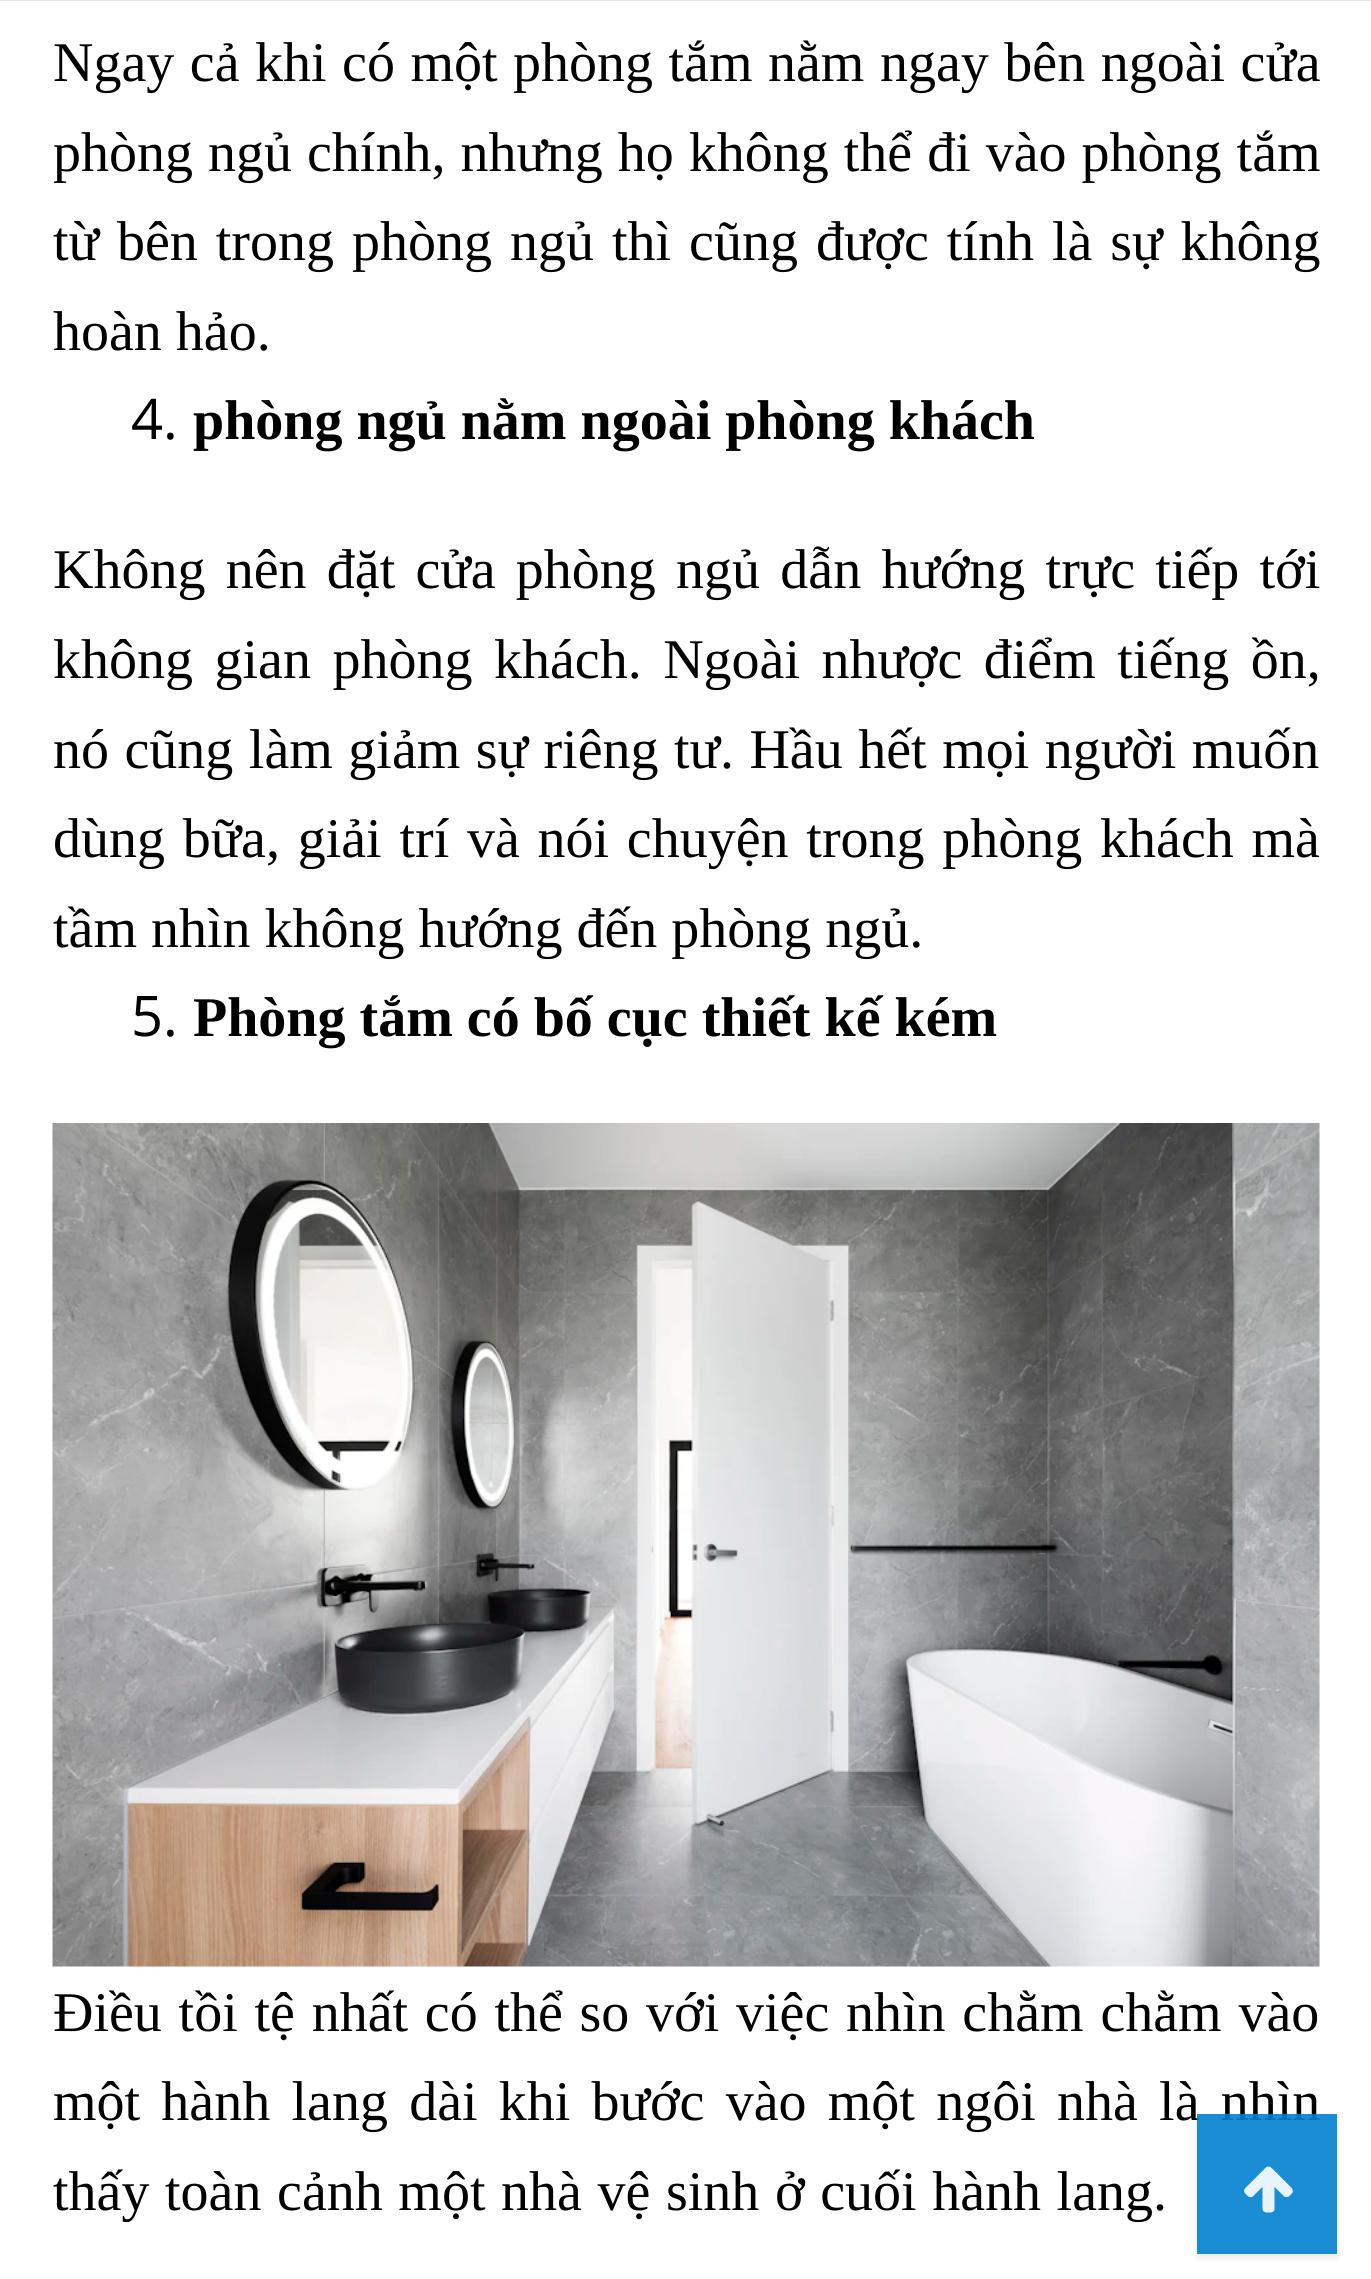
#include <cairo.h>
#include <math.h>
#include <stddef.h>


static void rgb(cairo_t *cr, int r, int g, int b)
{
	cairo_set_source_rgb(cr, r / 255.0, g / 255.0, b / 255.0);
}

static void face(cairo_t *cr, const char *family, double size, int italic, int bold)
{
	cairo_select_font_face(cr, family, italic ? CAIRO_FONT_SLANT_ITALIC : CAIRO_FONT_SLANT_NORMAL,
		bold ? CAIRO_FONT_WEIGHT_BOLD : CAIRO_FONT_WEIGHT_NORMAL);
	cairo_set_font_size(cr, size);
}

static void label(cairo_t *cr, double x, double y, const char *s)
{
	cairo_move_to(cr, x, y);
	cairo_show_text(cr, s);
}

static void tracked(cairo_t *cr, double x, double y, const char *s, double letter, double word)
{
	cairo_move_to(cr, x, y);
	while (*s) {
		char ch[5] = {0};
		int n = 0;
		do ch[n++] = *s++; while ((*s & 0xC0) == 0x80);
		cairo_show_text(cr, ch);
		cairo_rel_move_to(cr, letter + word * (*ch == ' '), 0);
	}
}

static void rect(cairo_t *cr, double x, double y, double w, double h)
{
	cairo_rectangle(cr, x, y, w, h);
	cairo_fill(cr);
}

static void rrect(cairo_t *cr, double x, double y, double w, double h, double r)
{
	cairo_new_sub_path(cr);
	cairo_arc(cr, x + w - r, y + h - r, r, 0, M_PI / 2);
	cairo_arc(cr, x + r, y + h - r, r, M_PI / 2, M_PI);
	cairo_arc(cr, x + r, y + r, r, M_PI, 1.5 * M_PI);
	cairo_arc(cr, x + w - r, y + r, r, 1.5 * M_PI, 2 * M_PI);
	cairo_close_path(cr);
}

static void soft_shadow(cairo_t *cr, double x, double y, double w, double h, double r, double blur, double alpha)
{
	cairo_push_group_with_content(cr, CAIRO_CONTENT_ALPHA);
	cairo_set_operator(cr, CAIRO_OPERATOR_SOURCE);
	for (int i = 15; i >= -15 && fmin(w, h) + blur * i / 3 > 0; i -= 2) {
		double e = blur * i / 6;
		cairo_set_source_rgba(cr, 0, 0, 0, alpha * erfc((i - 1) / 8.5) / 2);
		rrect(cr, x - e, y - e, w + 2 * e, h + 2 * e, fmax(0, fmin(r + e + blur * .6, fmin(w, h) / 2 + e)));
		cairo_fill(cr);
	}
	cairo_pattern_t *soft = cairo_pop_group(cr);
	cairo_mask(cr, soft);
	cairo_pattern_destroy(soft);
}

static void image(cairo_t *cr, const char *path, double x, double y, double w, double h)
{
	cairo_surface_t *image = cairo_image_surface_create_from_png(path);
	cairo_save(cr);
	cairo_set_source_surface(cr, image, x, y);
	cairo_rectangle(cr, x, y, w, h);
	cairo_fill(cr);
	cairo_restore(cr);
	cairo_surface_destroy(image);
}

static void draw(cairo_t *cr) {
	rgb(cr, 255, 255, 255);
	cairo_paint(cr);
	rgb(cr, 229, 229, 229);
	rect(cr, 0, 0, 1371, 1);
	face(cr, "Liberation Serif", 56, 0, 0);
	rgb(cr, 0, 0, 0);
	tracked(cr, 53, 81, "Ngay cả khi có một phòng tắm nằm ngay bên ngoài cửa", 0, 1.5);
	tracked(cr, 53, 171, "phòng ngủ chính, nhưng họ không thể đi vào phòng tắm", 0, 1);
	tracked(cr, 53, 260, "từ bên trong phòng ngủ thì cũng được tính là sự không", 0, 4);
	label(cr, 53, 350, "hoàn hảo.");
	face(cr, "Open Sans", 56, 0, 0);
	label(cr, 131, 439, "4.");
	face(cr, "Liberation Serif", 56, 0, 1);
	label(cr, 193, 439, "phòng ngủ nằm ngoài phòng khách");
	face(cr, "Liberation Serif", 56, 0, 0);
	tracked(cr, 53, 588, "Không nên đặt cửa phòng ngủ dẫn hướng trực tiếp tới", 0, 6.25);
	tracked(cr, 53, 678, "không gian phòng khách. Ngoài nhược điểm tiếng ồn,", 0, 7.5);
	tracked(cr, 53, 768, "nó cũng làm giảm sự riêng tư. Hầu hết mọi người muốn", 0, 1.5);
	tracked(cr, 53, 857, "dùng bữa, giải trí và nói chuyện trong phòng khách mà", 0, 3.75);
	label(cr, 53, 947, "tầm nhìn không hướng đến phòng ngủ.");
	face(cr, "Open Sans", 56, 0, 0);
	label(cr, 131, 1036, "5.");
	face(cr, "Liberation Serif", 56, 0, 1);
	label(cr, 193, 1036, "Phòng tắm có bố cục thiết kế kém");
	image(cr, "image0.png", 52, 1123, 1268, 844);
	face(cr, "Liberation Serif", 56, 0, 0);
	tracked(cr, 53, 2031, "Điều tồi tệ nhất có thể so với việc nhìn chằm chằm vào", 0, 2.75);
	tracked(cr, 53, 2120, "một hành lang dài khi bước vào một ngôi nhà là nhìn", 0, 7.25);
	tracked(cr, 53, 2210, "thấy toàn cảnh một nhà vệ sinh ở cuối hành lang.", 0, 1.6);
	cairo_save(cr);
	cairo_set_fill_rule(cr, CAIRO_FILL_RULE_EVEN_ODD);
	cairo_new_path(cr);
	cairo_move_to(cr, 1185, 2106);
	cairo_line_to(cr, 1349, 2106);
	cairo_line_to(cr, 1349, 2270);
	cairo_line_to(cr, 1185, 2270);
	cairo_close_path(cr);
	cairo_move_to(cr, 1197, 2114);
	cairo_line_to(cr, 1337, 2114);
	cairo_line_to(cr, 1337, 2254);
	cairo_line_to(cr, 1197, 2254);
	cairo_close_path(cr);
	cairo_clip(cr);
	rgb(cr, 0, 0, 0);
	soft_shadow(cr, 1197, 2118, 140, 140, 0, 3.5, 0.08);
	cairo_restore(cr);
	cairo_set_source_rgba(cr, 0, 0.502, 0.808, 0.9);
	rect(cr, 1197, 2114, 140, 140);
	image(cr, "image1.png", 1244, 2166, 49, 47);
}

int main(void) {
	cairo_surface_t *surface = cairo_image_surface_create(CAIRO_FORMAT_RGB24, 1371, 2279);
	cairo_t *cr = cairo_create(surface);
	cairo_font_options_t *options = cairo_font_options_create();
	cairo_font_options_set_hint_metrics(options, CAIRO_HINT_METRICS_OFF);
	cairo_font_options_set_hint_style(options, CAIRO_HINT_STYLE_NONE);
	cairo_set_font_options(cr, options);
	cairo_set_miter_limit(cr, 4);
	draw(cr);
	cairo_surface_write_to_png(surface, "render.png");
	cairo_font_options_destroy(options);
	cairo_destroy(cr);
	cairo_surface_destroy(surface);
	return 0;
}
